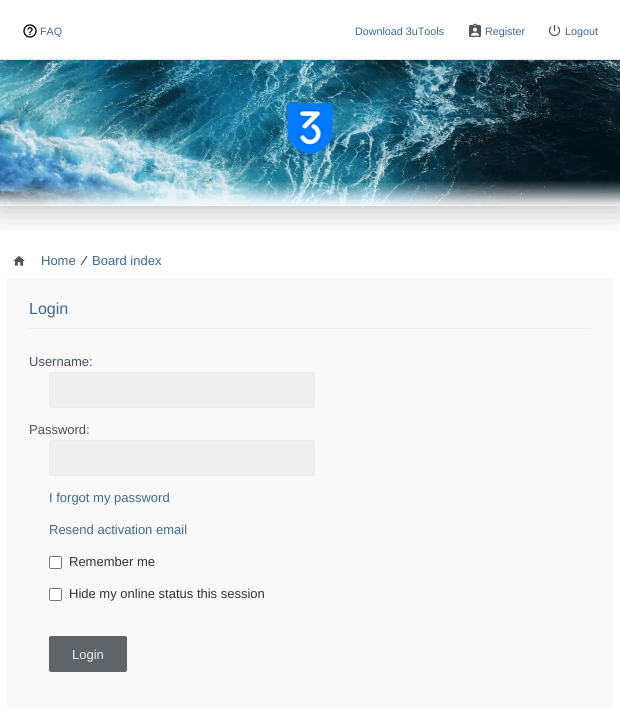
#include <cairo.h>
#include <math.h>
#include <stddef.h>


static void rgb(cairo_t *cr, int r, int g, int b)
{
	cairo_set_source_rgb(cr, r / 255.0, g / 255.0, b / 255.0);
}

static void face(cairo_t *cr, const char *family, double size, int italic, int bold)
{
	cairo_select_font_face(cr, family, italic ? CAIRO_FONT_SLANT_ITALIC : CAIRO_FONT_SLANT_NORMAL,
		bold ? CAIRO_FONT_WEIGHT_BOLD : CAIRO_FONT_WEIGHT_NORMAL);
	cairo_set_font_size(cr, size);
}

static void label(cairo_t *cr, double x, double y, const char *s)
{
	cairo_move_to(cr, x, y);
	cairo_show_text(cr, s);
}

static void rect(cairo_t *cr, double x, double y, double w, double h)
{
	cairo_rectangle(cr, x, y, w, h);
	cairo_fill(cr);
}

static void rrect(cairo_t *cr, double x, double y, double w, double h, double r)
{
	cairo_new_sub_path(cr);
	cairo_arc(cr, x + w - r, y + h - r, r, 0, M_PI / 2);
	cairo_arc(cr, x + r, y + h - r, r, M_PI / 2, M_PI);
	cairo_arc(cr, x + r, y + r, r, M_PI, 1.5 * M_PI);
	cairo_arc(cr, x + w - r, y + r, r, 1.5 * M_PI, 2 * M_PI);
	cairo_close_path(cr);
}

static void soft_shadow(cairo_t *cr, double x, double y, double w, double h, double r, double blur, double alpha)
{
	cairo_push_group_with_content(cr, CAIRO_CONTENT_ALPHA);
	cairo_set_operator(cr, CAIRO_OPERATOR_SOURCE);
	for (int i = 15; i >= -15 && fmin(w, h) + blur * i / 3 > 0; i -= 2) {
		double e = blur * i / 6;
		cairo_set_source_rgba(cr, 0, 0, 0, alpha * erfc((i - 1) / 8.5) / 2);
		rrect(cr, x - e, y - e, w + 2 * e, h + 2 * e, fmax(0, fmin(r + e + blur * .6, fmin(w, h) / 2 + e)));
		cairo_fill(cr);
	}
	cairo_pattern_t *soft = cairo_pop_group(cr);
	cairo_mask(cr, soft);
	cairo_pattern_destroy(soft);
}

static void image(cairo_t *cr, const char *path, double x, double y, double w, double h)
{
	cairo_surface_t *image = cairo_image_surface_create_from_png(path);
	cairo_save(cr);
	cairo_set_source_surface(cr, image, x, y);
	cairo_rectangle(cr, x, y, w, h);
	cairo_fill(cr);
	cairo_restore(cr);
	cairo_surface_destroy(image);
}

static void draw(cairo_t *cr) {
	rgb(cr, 255, 255, 255);
	cairo_paint(cr);
	cairo_save(cr);
	cairo_rectangle(cr, 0, 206, 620, 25);
	cairo_clip(cr);
	rgb(cr, 0, 0, 0);
	soft_shadow(cr, 0, 58, 620, 148, 0, 16, 0.32);
	cairo_restore(cr);
	image(cr, "image0.png", 0, 60, 620, 146);
	rgb(cr, 0, 0, 0);
	soft_shadow(cr, 0, 0, 620, 60, 0, 1, 0.11);
	rgb(cr, 255, 255, 255);
	rect(cr, 0, 0, 620, 59);
	rgb(cr, 229, 229, 229);
	rect(cr, 0, 59, 620, 1);
	image(cr, "image1.png", 23, 24, 14, 14);
	face(cr, "Liberation Sans", 10.75, 0, 0);
	rgb(cr, 61, 104, 146);
	label(cr, 40, 35, "FAQ");
	label(cr, 355, 35, "Download 3uTools");
	image(cr, "image2.png", 469, 23, 12, 14);
	label(cr, 485, 35, "Register");
	image(cr, "image3.png", 548, 24, 13, 13);
	label(cr, 565, 35, "Logout");
	image(cr, "image4.png", 13, 255, 12, 11);
	face(cr, "Liberation Sans", 13, 0, 0);
	label(cr, 41, 265, "Home");
	face(cr, "Liberation Sans", 13, 0, 1);
	rgb(cr, 69, 69, 69);
	label(cr, 83, 265, "⁄");
	face(cr, "Liberation Sans", 13, 0, 0);
	rgb(cr, 61, 104, 146);
	label(cr, 92, 265, "Board index");
	image(cr, "image5.png", 287, 103, 46, 51);
	rgb(cr, 249, 249, 249);
	rect(cr, 7, 279, 606, 427);
	rgb(cr, 245, 245, 245);
	rect(cr, 7, 278, 606, 1);
	rect(cr, 7, 706, 606, 1);
	rgb(cr, 240, 240, 240);
	rect(cr, 29, 328, 562, 1);
	face(cr, "Liberation Sans", 16, 0, 0);
	rgb(cr, 61, 104, 146);
	label(cr, 29, 314, "Login");
	face(cr, "Liberation Sans", 13, 0, 0);
	rgb(cr, 66, 80, 103);
	label(cr, 29, 366, "Username:");
	rgb(cr, 239, 239, 239);
	rrect(cr, 49.5, 372.5, 265, 35, 1.5);
	cairo_fill_preserve(cr);
	rgb(cr, 235, 235, 235);
	cairo_set_line_width(cr, 1);
	cairo_stroke(cr);
	rgb(cr, 66, 80, 103);
	label(cr, 29, 434, "Password:");
	rgb(cr, 239, 239, 239);
	rrect(cr, 49.5, 440.5, 265, 35, 1.5);
	cairo_fill_preserve(cr);
	rgb(cr, 235, 235, 235);
	cairo_stroke(cr);
	rgb(cr, 61, 104, 146);
	label(cr, 49, 502, "I forgot my password");
	label(cr, 49, 534, "Resend activation email");
	rgb(cr, 255, 255, 255);
	rrect(cr, 49.5, 556.5, 12, 12, 1.5);
	cairo_fill_preserve(cr);
	rgb(cr, 118, 118, 118);
	cairo_stroke(cr);
	rgb(cr, 51, 51, 51);
	label(cr, 69, 566, "Remember me");
	rgb(cr, 255, 255, 255);
	rrect(cr, 49.5, 588.5, 12, 12, 1.5);
	cairo_fill_preserve(cr);
	rgb(cr, 118, 118, 118);
	cairo_stroke(cr);
	rgb(cr, 51, 51, 51);
	label(cr, 69, 598, "Hide my online status this session");
	rgb(cr, 95, 100, 105);
	rrect(cr, 49.5, 636.5, 77, 35, 1.5);
	cairo_fill_preserve(cr);
	cairo_stroke(cr);
	rgb(cr, 235, 235, 235);
	label(cr, 72, 659, "Login");
}

int main(void) {
	cairo_surface_t *surface = cairo_image_surface_create(CAIRO_FORMAT_RGB24, 620, 714);
	cairo_t *cr = cairo_create(surface);
	cairo_font_options_t *options = cairo_font_options_create();
	cairo_font_options_set_hint_metrics(options, CAIRO_HINT_METRICS_OFF);
	cairo_font_options_set_hint_style(options, CAIRO_HINT_STYLE_NONE);
	cairo_set_font_options(cr, options);
	cairo_set_miter_limit(cr, 4);
	draw(cr);
	cairo_surface_write_to_png(surface, "render.png");
	cairo_font_options_destroy(options);
	cairo_destroy(cr);
	cairo_surface_destroy(surface);
	return 0;
}
